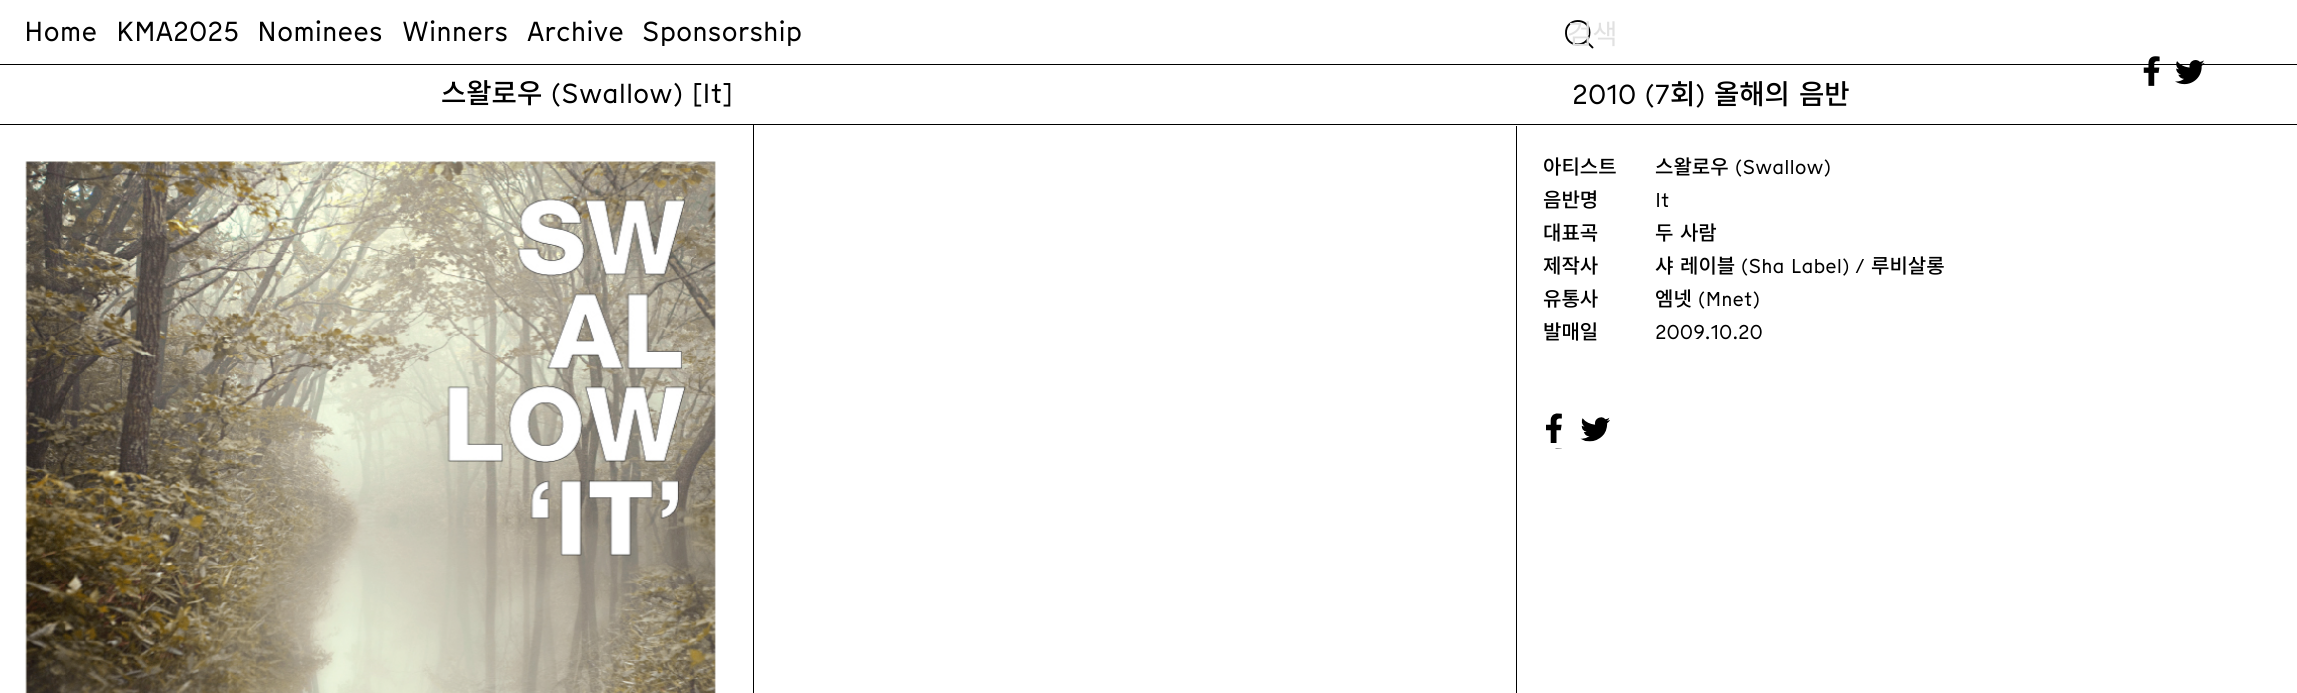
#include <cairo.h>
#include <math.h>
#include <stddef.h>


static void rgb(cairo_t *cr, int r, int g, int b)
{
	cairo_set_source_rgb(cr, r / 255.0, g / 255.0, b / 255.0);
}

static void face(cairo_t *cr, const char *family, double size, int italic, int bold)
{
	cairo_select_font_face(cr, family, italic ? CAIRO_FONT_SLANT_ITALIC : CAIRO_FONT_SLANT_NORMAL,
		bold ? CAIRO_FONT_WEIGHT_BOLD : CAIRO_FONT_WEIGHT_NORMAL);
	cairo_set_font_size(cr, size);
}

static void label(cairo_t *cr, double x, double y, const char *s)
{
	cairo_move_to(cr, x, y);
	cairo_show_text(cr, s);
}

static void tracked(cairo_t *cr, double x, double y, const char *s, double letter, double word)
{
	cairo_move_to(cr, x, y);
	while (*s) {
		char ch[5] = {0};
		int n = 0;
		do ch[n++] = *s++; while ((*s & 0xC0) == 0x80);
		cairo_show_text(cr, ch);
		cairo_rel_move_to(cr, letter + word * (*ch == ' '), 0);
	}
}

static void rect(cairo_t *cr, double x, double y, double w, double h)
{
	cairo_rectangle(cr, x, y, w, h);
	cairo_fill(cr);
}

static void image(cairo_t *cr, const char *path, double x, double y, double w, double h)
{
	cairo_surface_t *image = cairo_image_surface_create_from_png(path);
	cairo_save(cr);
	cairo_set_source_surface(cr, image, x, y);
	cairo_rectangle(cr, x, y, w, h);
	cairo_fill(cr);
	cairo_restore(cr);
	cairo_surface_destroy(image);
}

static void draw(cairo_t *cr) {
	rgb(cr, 255, 255, 255);
	cairo_paint(cr);
	rgb(cr, 0, 0, 0);
	rect(cr, 0, 64, 2297, 1);
	face(cr, "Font", 27.5, 0, 0);
	label(cr, 24, 41, "Home");
	label(cr, 116, 41, "KMA2025");
	label(cr, 257, 41, "Nominees");
	label(cr, 402, 41, "Winners");
	label(cr, 527, 41, "Archive");
	label(cr, 642, 41, "Sponsorship");
	cairo_new_path(cr);
	cairo_move_to(cr, 1589.5, 32.5);
	cairo_curve_to(cr, 1589.5, 48, 1566.5, 48.5, 1566, 33.5);
	cairo_curve_to(cr, 1565, 17.5, 1589.5, 16.5, 1589.5, 32.5);
	cairo_close_path(cr);
	cairo_move_to(cr, 1592.5, 47.5);
	cairo_line_to(cr, 1586, 41);
	cairo_set_line_width(cr, 1.9);
	cairo_set_line_cap(cr, CAIRO_LINE_CAP_ROUND);
	cairo_set_line_join(cr, CAIRO_LINE_JOIN_ROUND);
	cairo_stroke(cr);
	face(cr, "Noto Sans KR", 27.5, 0, 0);
	rgb(cr, 225, 225, 225);
	label(cr, 1567, 44, "검색");
	image(cr, "image0.png", 2143, 56, 17, 30);
	image(cr, "image1.png", 2175, 60, 30, 25);
	rgb(cr, 0, 0, 0);
	rect(cr, 0, 124, 2297, 1);
	face(cr, "Noto Sans KR Medium", 27.5, 0, 0);
	label(cr, 441, 103, "스왈로우");
	face(cr, "Font", 27.5, 0, 0);
	label(cr, 551, 103, "(Swallow) [It]");
	label(cr, 1572, 104, "2010 (7");
	face(cr, "Noto Sans KR Medium", 27.5, 0, 0);
	label(cr, 1670, 104, "회");
	face(cr, "Font", 27.5, 0, 0);
	label(cr, 1695, 104, ")");
	face(cr, "Noto Sans KR Medium", 27.5, 0, 0);
	label(cr, 1714, 104, "올해의");
	label(cr, 1799, 104, "음반");
	rect(cr, 753, 125, 1, 568);
	image(cr, "image2.png", 25, 161, 691, 532);
	rect(cr, 1516, 126, 1, 567);
	face(cr, "Noto Sans KR Medium", 20, 0, 0);
	label(cr, 1543, 174, "아티스트");
	label(cr, 1655, 174, "스왈로우");
	face(cr, "Font", 20, 0, 0);
	label(cr, 1735, 174, "(Swallow)");
	face(cr, "Noto Sans KR Medium", 20, 0, 0);
	label(cr, 1543, 207, "음반명");
	face(cr, "Font", 20, 0, 0);
	label(cr, 1655, 207, "It");
	face(cr, "Noto Sans KR Medium", 20, 0, 0);
	label(cr, 1543, 240, "대표곡");
	tracked(cr, 1655, 240, "두 사람", 0, 2);
	label(cr, 1543, 273, "제작사");
	label(cr, 1655, 273, "샤");
	label(cr, 1680, 273, "레이블");
	face(cr, "Font", 20, 0, 0);
	label(cr, 1741, 273, "(Sha Label) /");
	face(cr, "Noto Sans KR Medium", 20, 0, 0);
	label(cr, 1871, 273, "루비살롱");
	label(cr, 1543, 306, "유통사");
	label(cr, 1655, 306, "엠넷");
	face(cr, "Font", 20, 0, 0);
	label(cr, 1698, 306, "(Mnet)");
	face(cr, "Noto Sans KR Medium", 20, 0, 0);
	label(cr, 1543, 339, "발매일");
	face(cr, "Font", 20, 0, 0);
	label(cr, 1655, 339, "2009.10.20");
	image(cr, "image3.png", 1546, 413, 16, 36);
	image(cr, "image4.png", 1580, 417, 30, 25);
}

int main(void) {
	cairo_surface_t *surface = cairo_image_surface_create(CAIRO_FORMAT_RGB24, 2297, 693);
	cairo_t *cr = cairo_create(surface);
	cairo_font_options_t *options = cairo_font_options_create();
	cairo_font_options_set_hint_metrics(options, CAIRO_HINT_METRICS_OFF);
	cairo_font_options_set_hint_style(options, CAIRO_HINT_STYLE_NONE);
	cairo_set_font_options(cr, options);
	cairo_set_miter_limit(cr, 4);
	draw(cr);
	cairo_surface_write_to_png(surface, "render.png");
	cairo_font_options_destroy(options);
	cairo_destroy(cr);
	cairo_surface_destroy(surface);
	return 0;
}
